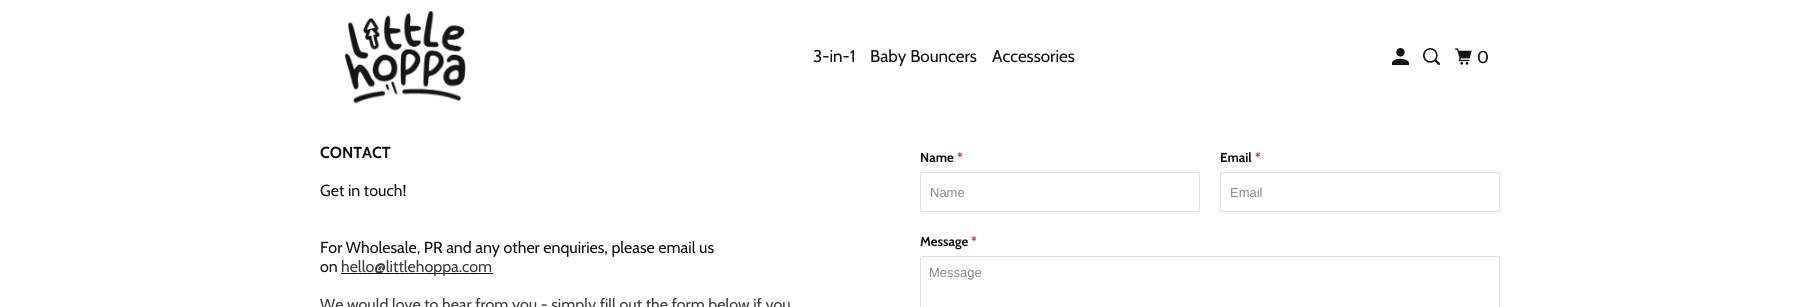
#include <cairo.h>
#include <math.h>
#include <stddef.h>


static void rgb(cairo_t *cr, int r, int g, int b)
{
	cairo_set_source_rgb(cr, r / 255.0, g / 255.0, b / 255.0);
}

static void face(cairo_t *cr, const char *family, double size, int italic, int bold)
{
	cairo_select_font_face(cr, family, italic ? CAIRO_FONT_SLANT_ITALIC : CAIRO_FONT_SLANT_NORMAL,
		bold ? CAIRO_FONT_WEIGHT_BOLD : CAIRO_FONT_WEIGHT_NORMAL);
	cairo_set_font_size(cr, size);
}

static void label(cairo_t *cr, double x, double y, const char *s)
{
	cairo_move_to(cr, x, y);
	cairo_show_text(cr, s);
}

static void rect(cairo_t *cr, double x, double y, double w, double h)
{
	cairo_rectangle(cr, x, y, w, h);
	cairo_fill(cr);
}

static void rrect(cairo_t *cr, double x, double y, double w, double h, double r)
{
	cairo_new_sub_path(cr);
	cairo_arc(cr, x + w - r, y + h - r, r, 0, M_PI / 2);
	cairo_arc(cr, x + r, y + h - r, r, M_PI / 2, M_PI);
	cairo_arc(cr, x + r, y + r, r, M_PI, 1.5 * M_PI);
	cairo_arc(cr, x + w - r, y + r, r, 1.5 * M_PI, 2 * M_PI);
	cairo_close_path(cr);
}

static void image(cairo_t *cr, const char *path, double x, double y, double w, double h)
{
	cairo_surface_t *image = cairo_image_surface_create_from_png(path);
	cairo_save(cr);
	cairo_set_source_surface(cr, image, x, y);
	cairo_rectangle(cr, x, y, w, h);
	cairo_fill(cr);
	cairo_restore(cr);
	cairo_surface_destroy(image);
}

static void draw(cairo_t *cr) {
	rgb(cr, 255, 255, 255);
	cairo_paint(cr);
	image(cr, "image0.png", 344, 11, 123, 93);
	face(cr, "Cabin", 17, 0, 0);
	rgb(cr, 17, 17, 17);
	label(cr, 813, 62, "3-in-1");
	label(cr, 870, 62, "Baby Bouncers");
	label(cr, 992, 62, "Accessories");
	image(cr, "image1.png", 1392, 48, 17, 18);
	image(cr, "image2.png", 1423, 48, 17, 17);
	image(cr, "image3.png", 1455, 48, 17, 17);
	label(cr, 1477, 63, "0");
	face(cr, "Cabin", 16, 0, 1);
	label(cr, 320, 158, "CONTACT");
	face(cr, "Cabin", 16, 0, 0);
	label(cr, 320, 196, "Get in touch!");
	label(cr, 320, 253, "For Wholesale, PR and any other enquiries, please email us");
	label(cr, 320, 272, "on");
	rect(cr, 341, 273, 152, 1);
	rgb(cr, 61, 57, 58);
	label(cr, 341, 272, "hello@littlehoppa.com");
	label(cr, 320, 310, "We would love to hear from you - simply fill out the form below if you");
	face(cr, "Cabin", 13, 0, 1);
	rgb(cr, 17, 17, 17);
	label(cr, 920, 162, "Name");
	rgb(cr, 204, 51, 51);
	label(cr, 957, 162, "*");
	rrect(cr, 920.5, 172.5, 279, 39, 1.5);
	rgb(cr, 223, 223, 223);
	cairo_set_line_width(cr, 1);
	cairo_stroke(cr);
	face(cr, "Liberation Sans", 13, 0, 0);
	rgb(cr, 136, 136, 136);
	label(cr, 930, 197, "Name");
	face(cr, "Cabin", 13, 0, 1);
	rgb(cr, 17, 17, 17);
	label(cr, 1220, 162, "Email");
	rgb(cr, 204, 51, 51);
	label(cr, 1255, 162, "*");
	rrect(cr, 1220.5, 172.5, 279, 39, 1.5);
	rgb(cr, 223, 223, 223);
	cairo_stroke(cr);
	face(cr, "Liberation Sans", 13, 0, 0);
	rgb(cr, 136, 136, 136);
	label(cr, 1230, 197, "Email");
	face(cr, "Cabin", 13, 0, 1);
	rgb(cr, 17, 17, 17);
	label(cr, 920, 246, "Message");
	rgb(cr, 204, 51, 51);
	label(cr, 971, 246, "*");
	rrect(cr, 920.5, 256.5, 579, 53, 1.5);
	rgb(cr, 223, 223, 223);
	cairo_stroke(cr);
	face(cr, "Liberation Sans", 13, 0, 0);
	rgb(cr, 136, 136, 136);
	label(cr, 929, 277, "Message");
}

int main(void) {
	cairo_surface_t *surface = cairo_image_surface_create(CAIRO_FORMAT_RGB24, 1820, 307);
	cairo_t *cr = cairo_create(surface);
	cairo_font_options_t *options = cairo_font_options_create();
	cairo_font_options_set_hint_metrics(options, CAIRO_HINT_METRICS_OFF);
	cairo_font_options_set_hint_style(options, CAIRO_HINT_STYLE_NONE);
	cairo_set_font_options(cr, options);
	cairo_set_miter_limit(cr, 4);
	draw(cr);
	cairo_surface_write_to_png(surface, "render.png");
	cairo_font_options_destroy(options);
	cairo_destroy(cr);
	cairo_surface_destroy(surface);
	return 0;
}
